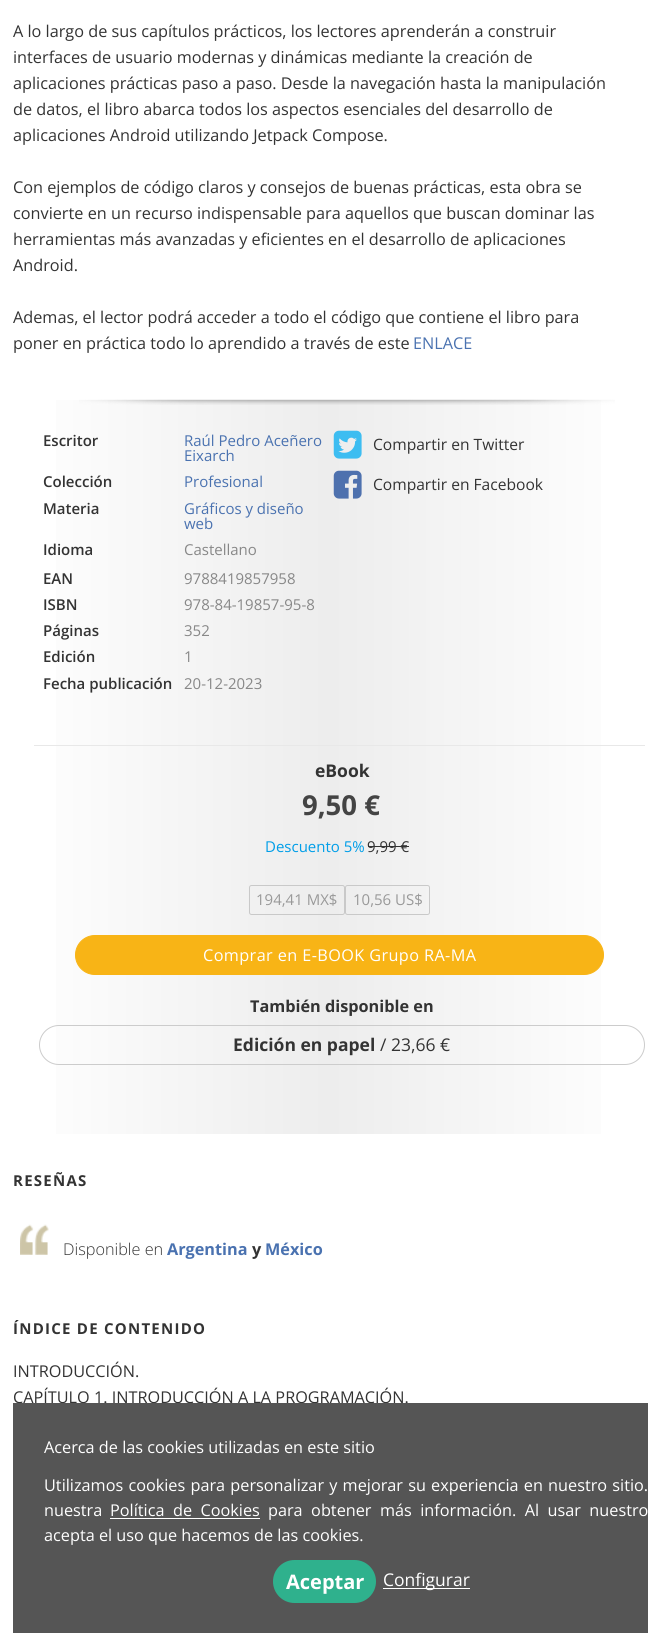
#include <cairo.h>
#include <math.h>
#include <stddef.h>


static void rgb(cairo_t *cr, int r, int g, int b)
{
	cairo_set_source_rgb(cr, r / 255.0, g / 255.0, b / 255.0);
}

static void face(cairo_t *cr, const char *family, double size, int italic, int bold)
{
	cairo_select_font_face(cr, family, italic ? CAIRO_FONT_SLANT_ITALIC : CAIRO_FONT_SLANT_NORMAL,
		bold ? CAIRO_FONT_WEIGHT_BOLD : CAIRO_FONT_WEIGHT_NORMAL);
	cairo_set_font_size(cr, size);
}

static void label(cairo_t *cr, double x, double y, const char *s)
{
	cairo_move_to(cr, x, y);
	cairo_show_text(cr, s);
}

static void tracked(cairo_t *cr, double x, double y, const char *s, double letter, double word)
{
	cairo_move_to(cr, x, y);
	while (*s) {
		char ch[5] = {0};
		int n = 0;
		do ch[n++] = *s++; while ((*s & 0xC0) == 0x80);
		cairo_show_text(cr, ch);
		cairo_rel_move_to(cr, letter + word * (*ch == ' '), 0);
	}
}

static void rect(cairo_t *cr, double x, double y, double w, double h)
{
	cairo_rectangle(cr, x, y, w, h);
	cairo_fill(cr);
}

static void rrect(cairo_t *cr, double x, double y, double w, double h, double r)
{
	cairo_new_sub_path(cr);
	cairo_arc(cr, x + w - r, y + h - r, r, 0, M_PI / 2);
	cairo_arc(cr, x + r, y + h - r, r, M_PI / 2, M_PI);
	cairo_arc(cr, x + r, y + r, r, M_PI, 1.5 * M_PI);
	cairo_arc(cr, x + w - r, y + r, r, 1.5 * M_PI, 2 * M_PI);
	cairo_close_path(cr);
}

static void image(cairo_t *cr, const char *path, double x, double y, double w, double h)
{
	cairo_surface_t *image = cairo_image_surface_create_from_png(path);
	cairo_save(cr);
	cairo_set_source_surface(cr, image, x, y);
	cairo_rectangle(cr, x, y, w, h);
	cairo_fill(cr);
	cairo_restore(cr);
	cairo_surface_destroy(image);
}

static void draw(cairo_t *cr) {
	cairo_pattern_t *gradient;
	rgb(cr, 255, 255, 255);
	cairo_paint(cr);
	face(cr, "Open Sans", 16.25, 0, 0);
	rgb(cr, 51, 51, 51);
	label(cr, 13, 37, "A lo largo de sus capítulos prácticos, los lectores aprenderán a construir");
	label(cr, 13, 63, "interfaces de usuario modernas y dinámicas mediante la creación de");
	label(cr, 13, 89, "aplicaciones prácticas paso a paso. Desde la navegación hasta la manipulación");
	label(cr, 13, 115, "de datos, el libro abarca todos los aspectos esenciales del desarrollo de");
	label(cr, 13, 141, "aplicaciones Android utilizando Jetpack Compose.");
	label(cr, 13, 193, "Con ejemplos de código claros y consejos de buenas prácticas, esta obra se");
	label(cr, 13, 219, "convierte en un recurso indispensable para aquellos que buscan dominar las");
	label(cr, 13, 245, "herramientas más avanzadas y eficientes en el desarrollo de aplicaciones");
	label(cr, 13, 271, "Android.");
	label(cr, 13, 323, "Ademas, el lector podrá acceder a todo el código que contiene el libro para");
	label(cr, 13, 349, "poner en práctica todo lo aprendido a través de este");
	rgb(cr, 74, 114, 176);
	label(cr, 413, 349, "ENLACE");
	gradient = cairo_pattern_create_linear(12, 767, 645, 767);
	cairo_pattern_add_color_stop_rgba(gradient, 0, 1, 1, 1, 1);
	cairo_pattern_add_color_stop_rgba(gradient, 0.5, 0.929, 0.929, 0.929, 1);
	cairo_pattern_add_color_stop_rgba(gradient, 1, 1, 1, 1, 1);
	cairo_set_source(cr, gradient);
	cairo_pattern_destroy(gradient);
	rect(cr, 56, 400, 545, 734);
	image(cr, "image0.png", 79, 399, 536, 6);
	face(cr, "Open Sans SemiBold", 15, 0, 0);
	rgb(cr, 51, 51, 51);
	label(cr, 43, 446, "Escritor");
	face(cr, "Open Sans", 15, 0, 0);
	rgb(cr, 74, 114, 176);
	label(cr, 184, 446, "Raúl Pedro Aceñero");
	label(cr, 184, 461, "Eixarch");
	face(cr, "Open Sans SemiBold", 15, 0, 0);
	rgb(cr, 51, 51, 51);
	label(cr, 43, 487, "Colección");
	face(cr, "Open Sans", 15, 0, 0);
	rgb(cr, 74, 114, 176);
	label(cr, 184, 487, "Profesional");
	face(cr, "Open Sans SemiBold", 15, 0, 0);
	rgb(cr, 51, 51, 51);
	label(cr, 43, 514, "Materia");
	face(cr, "Open Sans", 15, 0, 0);
	rgb(cr, 74, 114, 176);
	label(cr, 184, 514, "Gráficos y diseño");
	label(cr, 184, 529, "web");
	face(cr, "Open Sans SemiBold", 15, 0, 0);
	rgb(cr, 51, 51, 51);
	label(cr, 43, 555, "Idioma");
	face(cr, "Open Sans", 15, 0, 0);
	rgb(cr, 136, 136, 136);
	label(cr, 184, 555, "Castellano");
	face(cr, "Open Sans SemiBold", 15, 0, 0);
	rgb(cr, 51, 51, 51);
	label(cr, 43, 584, "EAN");
	face(cr, "Open Sans", 15, 0, 0);
	rgb(cr, 136, 136, 136);
	label(cr, 184, 584, "9788419857958");
	face(cr, "Open Sans SemiBold", 15, 0, 0);
	rgb(cr, 51, 51, 51);
	label(cr, 43, 610, "ISBN");
	face(cr, "Open Sans", 15, 0, 0);
	rgb(cr, 136, 136, 136);
	label(cr, 184, 610, "978-84-19857-95-8");
	face(cr, "Open Sans SemiBold", 15, 0, 0);
	rgb(cr, 51, 51, 51);
	label(cr, 43, 636, "Páginas");
	face(cr, "Open Sans", 15, 0, 0);
	rgb(cr, 136, 136, 136);
	label(cr, 184, 636, "352");
	face(cr, "Open Sans SemiBold", 15, 0, 0);
	rgb(cr, 51, 51, 51);
	label(cr, 43, 662, "Edición");
	face(cr, "Open Sans", 15, 0, 0);
	rgb(cr, 136, 136, 136);
	label(cr, 184, 662, "1");
	face(cr, "Open Sans SemiBold", 15, 0, 0);
	rgb(cr, 51, 51, 51);
	label(cr, 43, 689, "Fecha publicación");
	face(cr, "Open Sans", 15, 0, 0);
	rgb(cr, 136, 136, 136);
	label(cr, 184, 689, "20-12-2023");
	image(cr, "image1.png", 333, 430, 29, 29);
	face(cr, "Open Sans", 15.6, 0, 0);
	rgb(cr, 51, 51, 51);
	label(cr, 373, 450, "Compartir en Twitter");
	image(cr, "image2.png", 333, 470, 29, 29);
	label(cr, 373, 490, "Compartir en Facebook");
	rgb(cr, 232, 232, 232);
	rect(cr, 34, 745, 611, 1);
	face(cr, "Open Sans", 17.5, 0, 1);
	rgb(cr, 51, 51, 51);
	label(cr, 315, 777, "eBook");
	face(cr, "Open Sans", 27.5, 0, 1);
	rgb(cr, 68, 68, 68);
	label(cr, 302, 815, "9,50 €");
	face(cr, "Open Sans", 15, 0, 0);
	rgb(cr, 0, 158, 232);
	label(cr, 265, 852, "Descuento 5%");
	rgb(cr, 51, 51, 51);
	label(cr, 367, 852, "9,99 €");
	rect(cr, 368, 846, 41, 1);
	rrect(cr, 249.5, 885.5, 95, 29, 2);
	rgb(cr, 201, 201, 201);
	cairo_set_line_width(cr, 1);
	cairo_stroke(cr);
	rgb(cr, 153, 153, 153);
	label(cr, 256, 905, "194,41 MX$");
	rrect(cr, 345.5, 885.5, 84, 29, 2);
	rgb(cr, 201, 201, 201);
	cairo_stroke(cr);
	rgb(cr, 153, 153, 153);
	label(cr, 353, 905, "10,56 US$");
	rgb(cr, 248, 180, 22);
	rrect(cr, 75.5, 935.5, 528, 39, 19.5);
	cairo_fill_preserve(cr);
	cairo_stroke(cr);
	face(cr, "Open Sans", 16.25, 0, 0);
	rgb(cr, 255, 255, 255);
	tracked(cr, 203, 961, "Comprar en E-BOOK Grupo RA-MA", 0.4, 0);
	face(cr, "Open Sans", 16.25, 0, 1);
	rgb(cr, 51, 51, 51);
	label(cr, 250, 1012, "También disponible en");
	rrect(cr, 39.5, 1025.5, 605, 39, 19.5);
	rgb(cr, 204, 204, 204);
	cairo_stroke(cr);
	face(cr, "Open Sans", 17.5, 0, 1);
	rgb(cr, 51, 51, 51);
	label(cr, 233, 1051, "Edición en papel");
	face(cr, "Open Sans", 17.5, 0, 0);
	label(cr, 380, 1051, "/ 23,66 €");
	face(cr, "Open Sans", 15, 0, 1);
	tracked(cr, 13, 1186, "RESEÑAS", 1.25, 0);
	image(cr, "image3.png", 20, 1224, 29, 31);
	face(cr, "Open Sans Light", 16.25, 0, 0);
	label(cr, 63, 1255, "Disponible en");
	face(cr, "Open Sans", 16.25, 0, 1);
	rgb(cr, 74, 114, 176);
	label(cr, 167, 1255, "Argentina");
	rgb(cr, 51, 51, 51);
	label(cr, 252, 1255, "y");
	rgb(cr, 74, 114, 176);
	label(cr, 265, 1255, "México");
	face(cr, "Open Sans", 15, 0, 1);
	rgb(cr, 51, 51, 51);
	tracked(cr, 13, 1334, "ÍNDICE DE CONTENIDO", 1.25, 0);
	face(cr, "Open Sans", 16.25, 0, 0);
	label(cr, 13, 1377, "INTRODUCCIÓN.");
	label(cr, 13, 1403, "CAPÍTULO 1. INTRODUCCIÓN A LA PROGRAMACIÓN.");
	rgb(cr, 85, 85, 85);
	rect(cr, 13, 1403, 635, 230);
	rgb(cr, 255, 255, 255);
	label(cr, 44, 1453, "Acerca de las cookies utilizadas en este sitio");
	tracked(cr, 44, 1491, "Utilizamos cookies para personalizar y mejorar su experiencia en nuestro sitio.", 0, 1);
	label(cr, 44, 1516, "nuestra");
	tracked(cr, 110, 1516, "Política de Cookies", 0, 4.25);
	rect(cr, 110, 1518, 150, 1);
	tracked(cr, 268, 1516, "para obtener más información. Al usar nuestro", 0, 4.25);
	label(cr, 44, 1541, "acepta el uso que hacemos de las cookies.");
	rgb(cr, 47, 177, 141);
	rrect(cr, 273, 1560, 103, 43, 21.5);
	cairo_fill(cr);
	face(cr, "Open Sans", 20, 0, 1);
	rgb(cr, 255, 255, 255);
	label(cr, 286, 1589, "Aceptar");
	rect(cr, 383, 1588, 87, 1);
	face(cr, "Open Sans", 17.5, 0, 0);
	label(cr, 383, 1586, "Configurar");
}

int main(void) {
	cairo_surface_t *surface = cairo_image_surface_create(CAIRO_FORMAT_RGB24, 648, 1633);
	cairo_t *cr = cairo_create(surface);
	cairo_font_options_t *options = cairo_font_options_create();
	cairo_font_options_set_hint_metrics(options, CAIRO_HINT_METRICS_OFF);
	cairo_font_options_set_hint_style(options, CAIRO_HINT_STYLE_NONE);
	cairo_set_font_options(cr, options);
	cairo_set_miter_limit(cr, 4);
	draw(cr);
	cairo_surface_write_to_png(surface, "render.png");
	cairo_font_options_destroy(options);
	cairo_destroy(cr);
	cairo_surface_destroy(surface);
	return 0;
}
